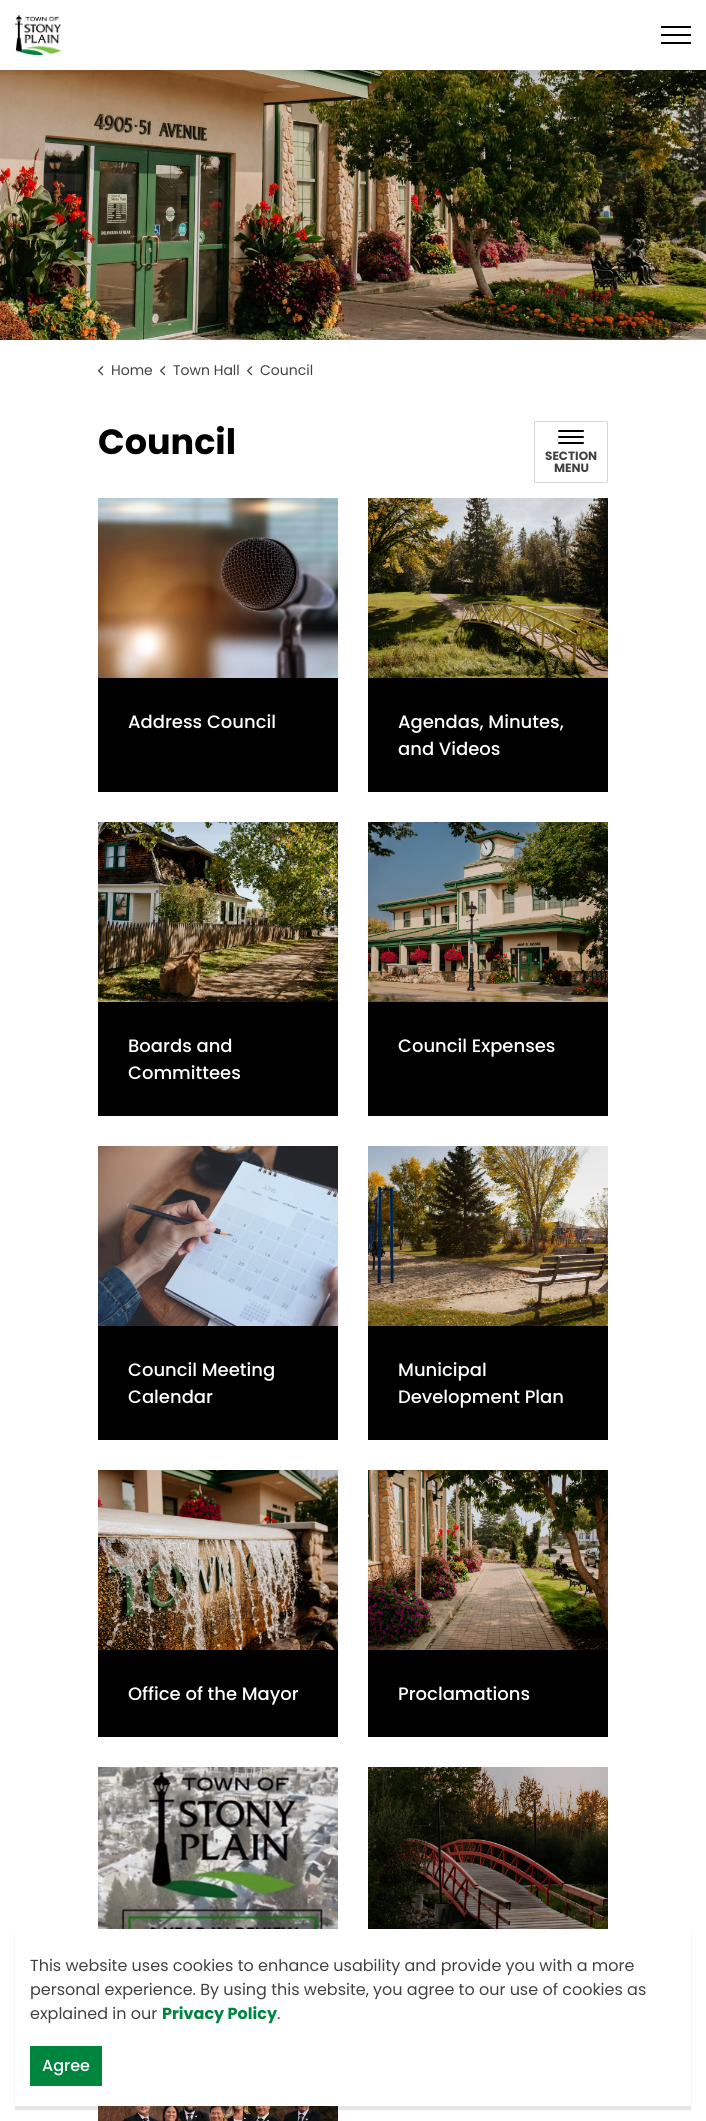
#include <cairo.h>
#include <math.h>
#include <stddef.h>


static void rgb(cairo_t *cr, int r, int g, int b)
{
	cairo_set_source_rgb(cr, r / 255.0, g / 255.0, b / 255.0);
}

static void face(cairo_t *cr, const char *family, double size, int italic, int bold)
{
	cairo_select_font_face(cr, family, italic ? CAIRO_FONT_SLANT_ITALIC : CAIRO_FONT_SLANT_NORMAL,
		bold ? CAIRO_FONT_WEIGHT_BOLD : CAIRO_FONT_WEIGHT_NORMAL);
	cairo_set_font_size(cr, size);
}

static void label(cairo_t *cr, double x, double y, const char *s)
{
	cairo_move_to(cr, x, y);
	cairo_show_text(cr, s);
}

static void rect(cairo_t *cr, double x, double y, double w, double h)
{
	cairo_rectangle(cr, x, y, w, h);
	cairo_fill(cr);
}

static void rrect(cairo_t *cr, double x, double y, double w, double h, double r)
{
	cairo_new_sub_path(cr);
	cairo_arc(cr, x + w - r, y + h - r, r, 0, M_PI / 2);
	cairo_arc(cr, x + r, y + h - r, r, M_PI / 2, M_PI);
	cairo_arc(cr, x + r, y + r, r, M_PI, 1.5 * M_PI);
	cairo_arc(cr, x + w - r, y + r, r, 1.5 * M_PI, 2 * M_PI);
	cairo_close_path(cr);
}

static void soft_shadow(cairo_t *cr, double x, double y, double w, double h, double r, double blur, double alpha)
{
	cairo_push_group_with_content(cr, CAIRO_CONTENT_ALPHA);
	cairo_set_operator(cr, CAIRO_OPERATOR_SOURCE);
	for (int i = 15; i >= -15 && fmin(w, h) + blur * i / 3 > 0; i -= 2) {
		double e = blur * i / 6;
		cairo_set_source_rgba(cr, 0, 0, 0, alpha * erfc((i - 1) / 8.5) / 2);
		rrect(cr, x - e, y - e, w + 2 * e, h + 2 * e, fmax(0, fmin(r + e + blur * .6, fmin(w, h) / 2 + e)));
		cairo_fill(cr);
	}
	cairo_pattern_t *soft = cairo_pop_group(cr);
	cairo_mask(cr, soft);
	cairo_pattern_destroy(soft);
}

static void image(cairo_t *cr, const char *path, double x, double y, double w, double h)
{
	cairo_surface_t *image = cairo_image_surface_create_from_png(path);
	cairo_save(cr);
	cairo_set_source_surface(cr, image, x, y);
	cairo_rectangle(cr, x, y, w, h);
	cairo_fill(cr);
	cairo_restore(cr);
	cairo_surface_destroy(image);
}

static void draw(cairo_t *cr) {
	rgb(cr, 255, 255, 255);
	cairo_paint(cr);
	image(cr, "image1.png", 0, 70, 706, 270);
	cairo_save(cr);
	cairo_rectangle(cr, 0, 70, 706, 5);
	cairo_clip(cr);
	rgb(cr, 0, 0, 0);
	soft_shadow(cr, 0, 1, 706, 70, 0, 5, 0.1);
	cairo_restore(cr);
	image(cr, "image0.png", 15, 15, 46, 40);
	rgb(cr, 0, 0, 0);
	rect(cr, 661, 34, 30, 2);
	rect(cr, 661, 26, 30, 2);
	rect(cr, 661, 42, 30, 2);
	image(cr, "image2.png", 98, 366, 6, 10);
	face(cr, "Poppins", 14, 0, 0);
	rgb(cr, 65, 65, 65);
	label(cr, 111, 375, "Home");
	image(cr, "image2.png", 160, 366, 6, 10);
	label(cr, 173, 375, "Town Hall");
	image(cr, "image2.png", 247, 366, 6, 10);
	label(cr, 260, 375, "Council");
	face(cr, "Poppins", 35, 0, 1);
	rgb(cr, 0, 0, 0);
	label(cr, 98, 454, "Council");
	rrect(cr, 534.5, 421.5, 73, 61, 1.5);
	rgb(cr, 212, 212, 212);
	cairo_set_line_width(cr, 1);
	cairo_stroke(cr);
	rgb(cr, 0, 0, 0);
	rrect(cr, 558, 436, 26, 2, 1);
	cairo_fill(cr);
	rrect(cr, 558, 430, 26, 2, 1);
	cairo_fill(cr);
	rrect(cr, 558, 442, 26, 2, 1);
	cairo_fill(cr);
	face(cr, "Poppins", 12, 0, 1);
	rgb(cr, 65, 65, 65);
	label(cr, 545, 460, "SECTION");
	label(cr, 554, 472, "MENU");
	rgb(cr, 0, 0, 0);
	rect(cr, 98, 678, 240, 114);
	image(cr, "image3.png", 98, 498, 240, 180);
	face(cr, "Poppins Medium", 18, 0, 0);
	rgb(cr, 255, 255, 255);
	label(cr, 128, 728, "Address Council");
	rgb(cr, 0, 0, 0);
	rect(cr, 368, 678, 240, 114);
	image(cr, "image4.png", 368, 498, 240, 180);
	rgb(cr, 255, 255, 255);
	label(cr, 398, 728, "Agendas, Minutes,");
	label(cr, 398, 755, "and Videos");
	rgb(cr, 0, 0, 0);
	rect(cr, 98, 1002, 240, 114);
	image(cr, "image5.png", 98, 822, 240, 180);
	rgb(cr, 255, 255, 255);
	label(cr, 128, 1052, "Boards and");
	label(cr, 128, 1079, "Committees");
	rgb(cr, 0, 0, 0);
	rect(cr, 368, 1002, 240, 114);
	image(cr, "image6.png", 368, 822, 240, 180);
	rgb(cr, 255, 255, 255);
	label(cr, 398, 1052, "Council Expenses");
	rgb(cr, 0, 0, 0);
	rect(cr, 98, 1326, 240, 114);
	image(cr, "image7.png", 98, 1146, 240, 180);
	rgb(cr, 255, 255, 255);
	label(cr, 128, 1376, "Council Meeting");
	label(cr, 128, 1403, "Calendar");
	rgb(cr, 0, 0, 0);
	rect(cr, 368, 1326, 240, 114);
	image(cr, "image8.png", 368, 1146, 240, 180);
	rgb(cr, 255, 255, 255);
	label(cr, 398, 1376, "Municipal");
	label(cr, 398, 1403, "Development Plan");
	rgb(cr, 0, 0, 0);
	rect(cr, 98, 1650, 240, 87);
	image(cr, "image9.png", 98, 1470, 240, 180);
	rgb(cr, 255, 255, 255);
	label(cr, 128, 1700, "Office of the Mayor");
	rgb(cr, 0, 0, 0);
	rect(cr, 368, 1650, 240, 87);
	image(cr, "image10.png", 368, 1470, 240, 180);
	rgb(cr, 255, 255, 255);
	label(cr, 398, 1700, "Proclamations");
	image(cr, "image11.png", 98, 1767, 240, 162);
	image(cr, "image12.png", 368, 1767, 240, 162);
	image(cr, "image13.png", 98, 2106, 240, 15);
	rgb(cr, 0, 0, 0);
	soft_shadow(cr, 15, 1933, 676, 177, 0, 0.5, 0.1);
	rgb(cr, 255, 255, 255);
	rect(cr, 15, 1932, 676, 174);
	face(cr, "Poppins", 16, 0, 0);
	rgb(cr, 65, 65, 65);
	label(cr, 30, 1971, "This website uses cookies to enhance usability and provide you with a more");
	label(cr, 30, 1995, "personal experience. By using this website, you agree to our use of cookies as");
	label(cr, 30, 2019, "explained in our");
	face(cr, "Poppins", 16, 0, 1);
	rgb(cr, 0, 133, 63);
	label(cr, 162, 2019, "Privacy Policy");
	face(cr, "Poppins", 16, 0, 0);
	rgb(cr, 65, 65, 65);
	label(cr, 277, 2019, ".");
	rgb(cr, 0, 133, 63);
	rect(cr, 30, 2046, 72, 40);
	face(cr, "Poppins Medium", 16, 0, 0);
	rgb(cr, 255, 255, 255);
	label(cr, 42, 2071, "Agree");
}

int main(void) {
	cairo_surface_t *surface = cairo_image_surface_create(CAIRO_FORMAT_RGB24, 706, 2121);
	cairo_t *cr = cairo_create(surface);
	cairo_font_options_t *options = cairo_font_options_create();
	cairo_font_options_set_hint_metrics(options, CAIRO_HINT_METRICS_OFF);
	cairo_font_options_set_hint_style(options, CAIRO_HINT_STYLE_NONE);
	cairo_set_font_options(cr, options);
	cairo_set_miter_limit(cr, 4);
	draw(cr);
	cairo_surface_write_to_png(surface, "render.png");
	cairo_font_options_destroy(options);
	cairo_destroy(cr);
	cairo_surface_destroy(surface);
	return 0;
}
